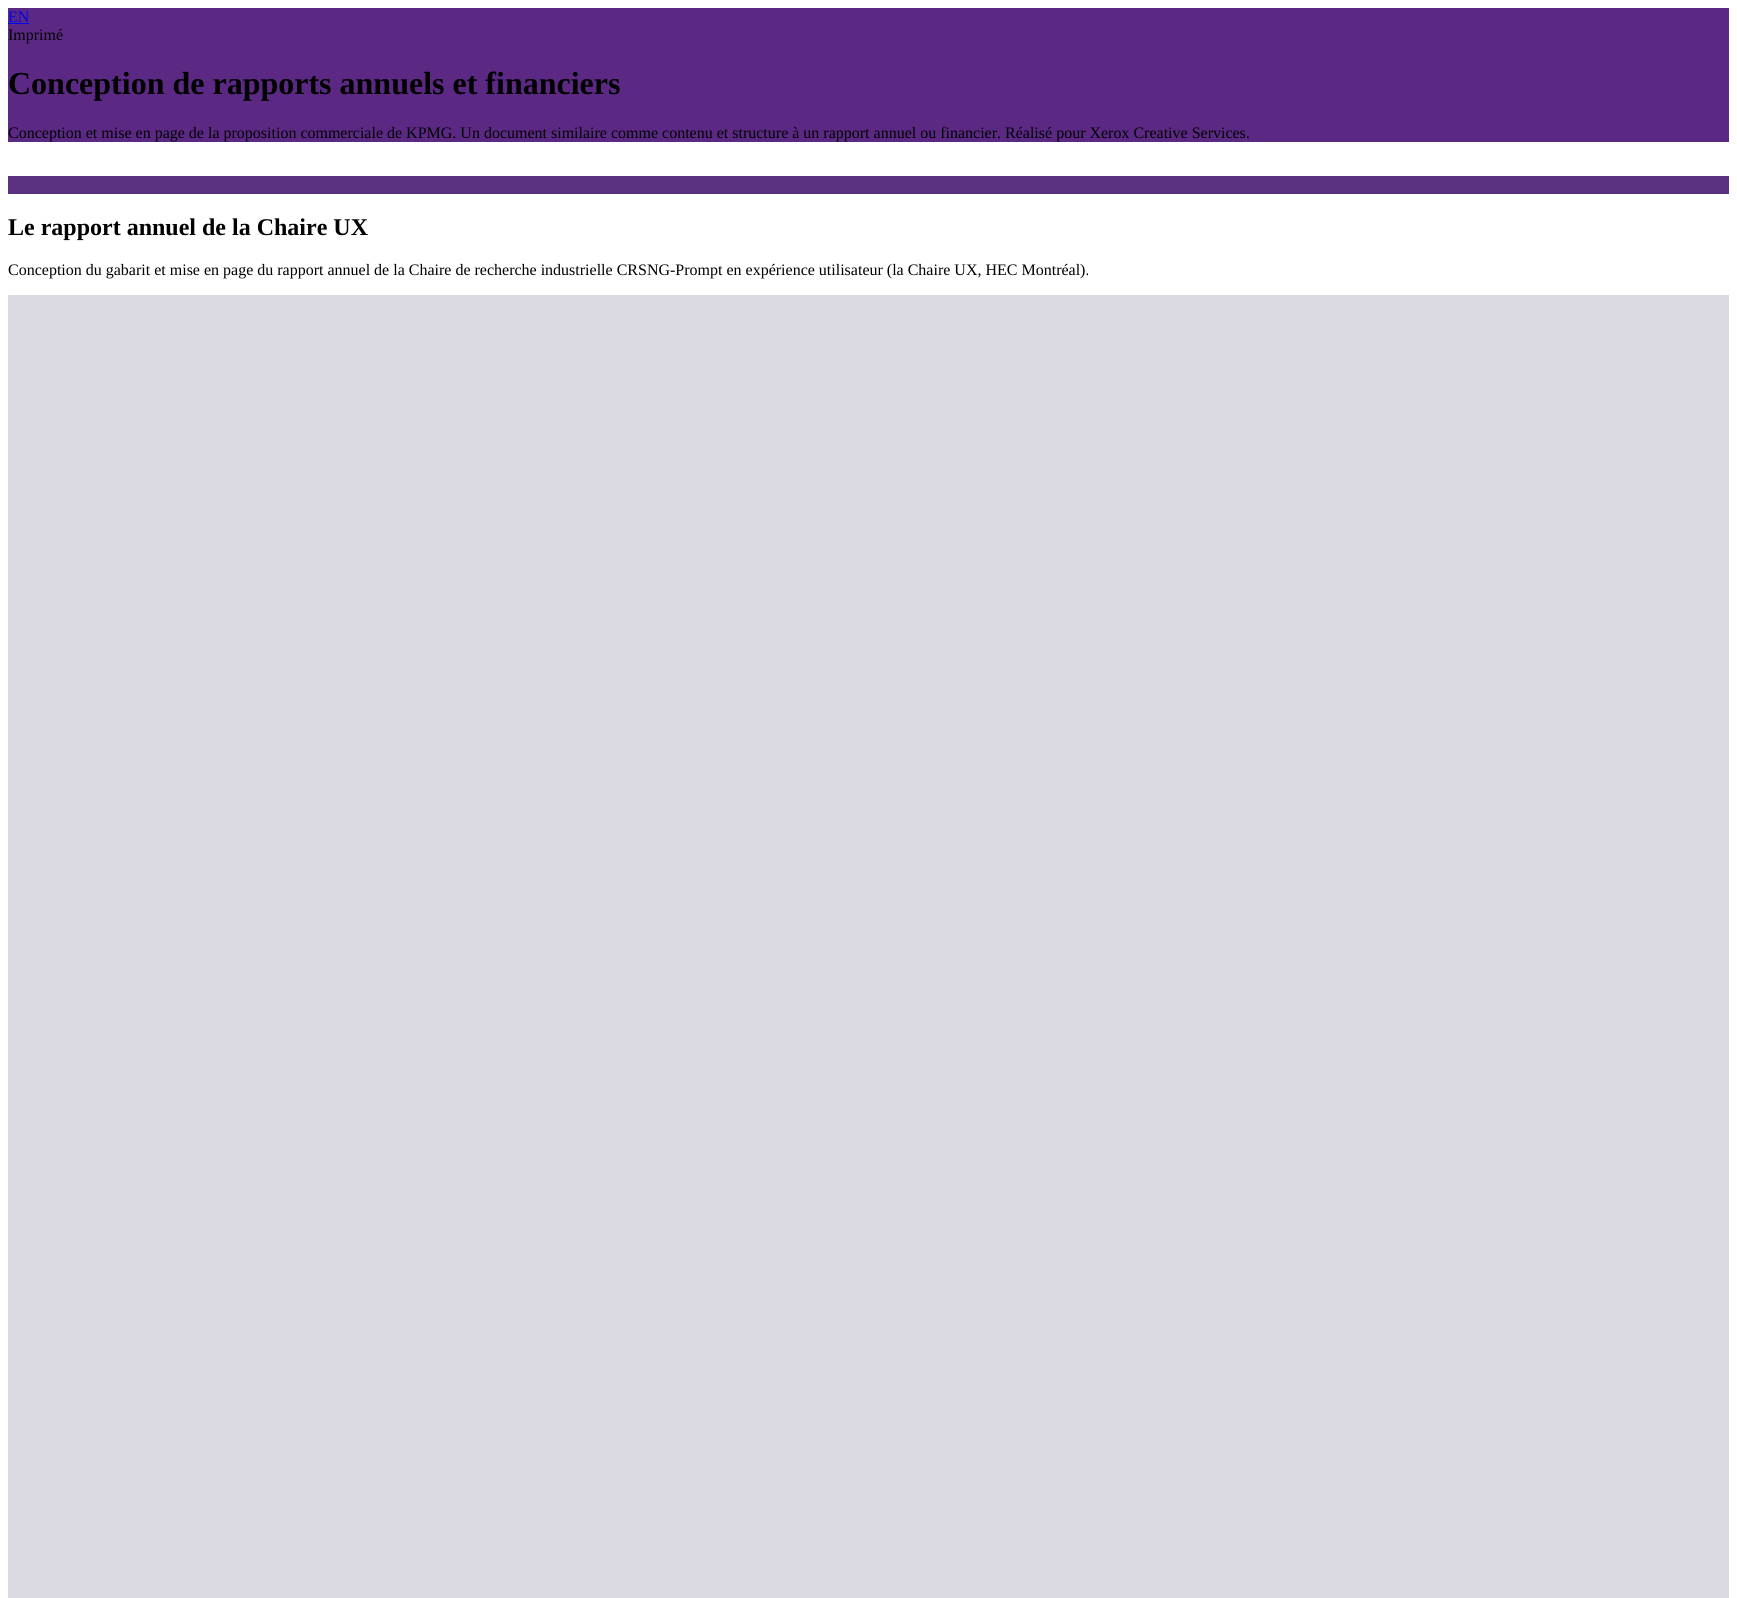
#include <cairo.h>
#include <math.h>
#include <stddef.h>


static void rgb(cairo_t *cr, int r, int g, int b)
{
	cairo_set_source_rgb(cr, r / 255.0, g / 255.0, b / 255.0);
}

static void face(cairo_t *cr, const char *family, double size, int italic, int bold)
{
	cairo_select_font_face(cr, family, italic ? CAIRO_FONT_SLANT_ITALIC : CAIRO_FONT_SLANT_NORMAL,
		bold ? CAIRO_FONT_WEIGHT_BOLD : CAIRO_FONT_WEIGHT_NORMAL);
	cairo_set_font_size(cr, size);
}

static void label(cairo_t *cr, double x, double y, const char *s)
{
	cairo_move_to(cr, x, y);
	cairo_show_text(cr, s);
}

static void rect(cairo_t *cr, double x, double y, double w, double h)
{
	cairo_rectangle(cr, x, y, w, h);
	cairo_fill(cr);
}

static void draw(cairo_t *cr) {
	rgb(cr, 255, 255, 255);
	cairo_paint(cr);
	rgb(cr, 91, 41, 132);
	rect(cr, 8, 8, 1721, 134);
	face(cr, "Liberation Serif", 16, 0, 0);
	rgb(cr, 0, 0, 238);
	label(cr, 8, 22, "EN");
	rect(cr, 8, 23, 21, 1);
	rgb(cr, 0, 0, 0);
	label(cr, 8, 40, "Imprimé");
	face(cr, "Liberation Serif", 32, 0, 1);
	label(cr, 8, 94, "Conception de rapports annuels et financiers");
	face(cr, "Liberation Serif", 16, 0, 0);
	label(cr, 8, 138, "Conception et mise en page de la proposition commerciale de KPMG. Un document similaire comme contenu et structure à un rapport annuel ou financier. Réalisé pour Xerox Creative Services.");
	rgb(cr, 90, 48, 128);
	rect(cr, 8, 176, 1721, 18);
	face(cr, "Liberation Serif", 24, 0, 1);
	rgb(cr, 0, 0, 0);
	label(cr, 8, 235, "Le rapport annuel de la Chaire UX");
	face(cr, "Liberation Serif", 16, 0, 0);
	label(cr, 8, 275, "Conception du gabarit et mise en page du rapport annuel de la Chaire de recherche industrielle CRSNG-Prompt en expérience utilisateur (la Chaire UX, HEC Montréal).");
	rgb(cr, 219, 217, 225);
	rect(cr, 8, 295, 1721, 1303);
}

int main(void) {
	cairo_surface_t *surface = cairo_image_surface_create(CAIRO_FORMAT_RGB24, 1737, 1598);
	cairo_t *cr = cairo_create(surface);
	cairo_font_options_t *options = cairo_font_options_create();
	cairo_font_options_set_hint_metrics(options, CAIRO_HINT_METRICS_OFF);
	cairo_font_options_set_hint_style(options, CAIRO_HINT_STYLE_NONE);
	cairo_set_font_options(cr, options);
	cairo_set_miter_limit(cr, 4);
	draw(cr);
	cairo_surface_write_to_png(surface, "render.png");
	cairo_font_options_destroy(options);
	cairo_destroy(cr);
	cairo_surface_destroy(surface);
	return 0;
}
